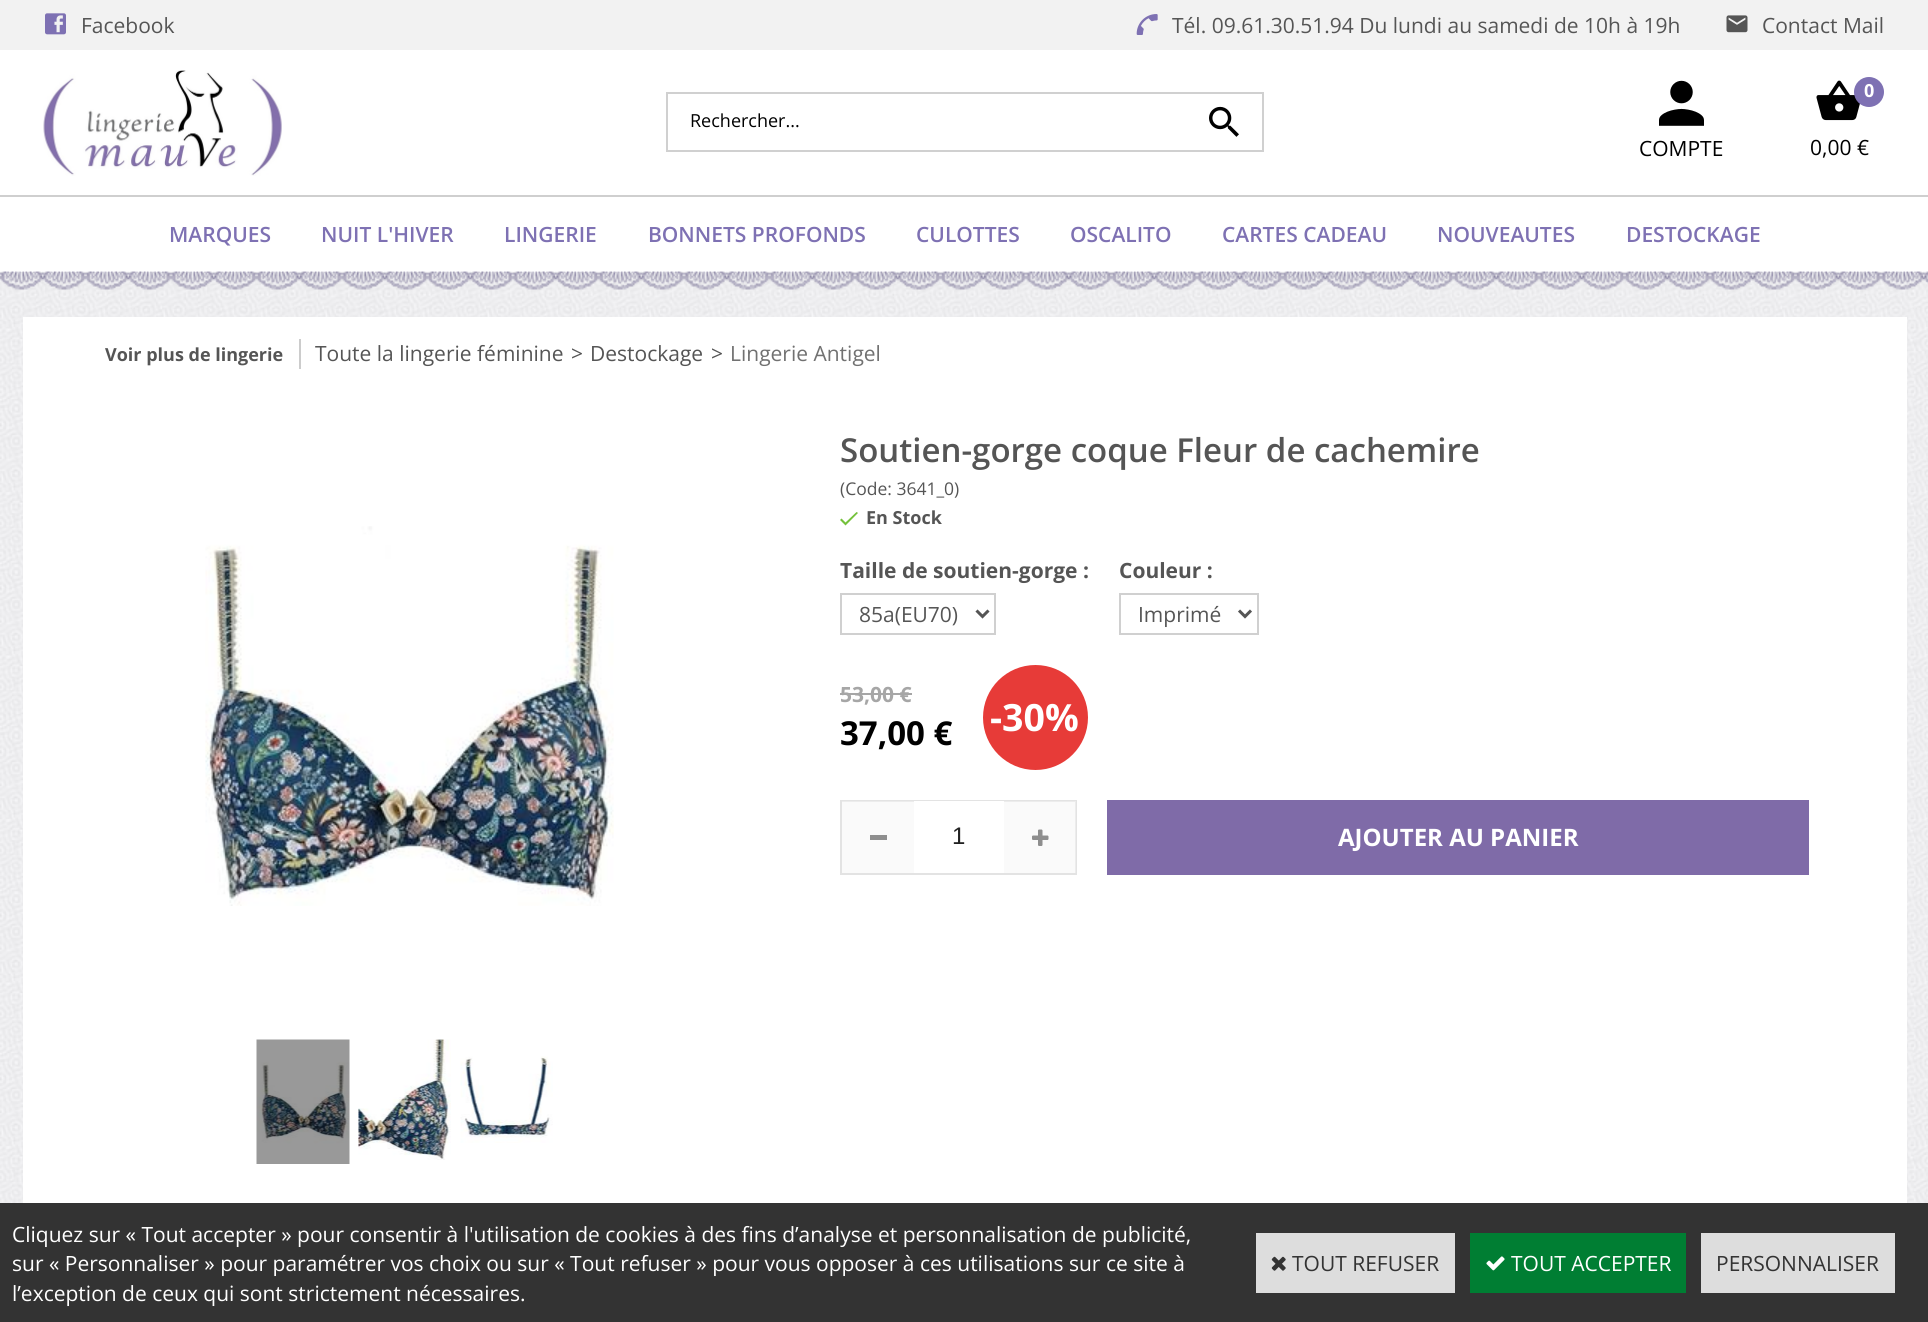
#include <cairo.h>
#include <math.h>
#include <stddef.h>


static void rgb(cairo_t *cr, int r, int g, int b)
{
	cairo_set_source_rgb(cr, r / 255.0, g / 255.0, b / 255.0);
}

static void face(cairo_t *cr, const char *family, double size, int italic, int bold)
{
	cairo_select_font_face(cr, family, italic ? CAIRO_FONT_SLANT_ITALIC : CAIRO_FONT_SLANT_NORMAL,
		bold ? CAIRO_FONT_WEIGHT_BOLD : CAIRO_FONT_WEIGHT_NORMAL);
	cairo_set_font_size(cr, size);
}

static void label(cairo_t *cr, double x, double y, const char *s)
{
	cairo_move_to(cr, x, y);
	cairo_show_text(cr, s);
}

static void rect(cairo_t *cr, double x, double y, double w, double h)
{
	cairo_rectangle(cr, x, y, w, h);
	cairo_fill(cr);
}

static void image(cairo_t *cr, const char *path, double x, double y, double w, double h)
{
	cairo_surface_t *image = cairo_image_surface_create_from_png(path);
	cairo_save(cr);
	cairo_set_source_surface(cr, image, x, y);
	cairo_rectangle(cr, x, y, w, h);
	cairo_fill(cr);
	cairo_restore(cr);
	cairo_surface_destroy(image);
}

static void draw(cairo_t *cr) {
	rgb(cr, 255, 255, 255);
	cairo_paint(cr);
	image(cr, "image0.png", 0, 272, 1928, 931);
	rgb(cr, 242, 242, 242);
	rect(cr, 0, 0, 1928, 50);
	image(cr, "image1.png", 45, 13, 21, 22);
	face(cr, "Open Sans", 21, 0, 0);
	rgb(cr, 85, 85, 85);
	label(cr, 81, 33, "Facebook");
	image(cr, "image2.png", 1136, 14, 22, 21);
	label(cr, 1172, 33, "Tél. 09.61.30.51.94 Du lundi au samedi de 10h à 19h");
	image(cr, "image3.png", 1726, 15, 22, 18);
	label(cr, 1762, 33, "Contact Mail");
	image(cr, "image4.png", 43, 70, 239, 106);
	rgb(cr, 208, 208, 208);
	rect(cr, 666, 92, 597, 2);
	rect(cr, 666, 150, 521, 2);
	rect(cr, 666, 92, 2, 60);
	face(cr, "Open Sans", 18, 0, 0);
	rgb(cr, 0, 0, 0);
	label(cr, 690, 127, "Rechercher...");
	rgb(cr, 208, 208, 208);
	rect(cr, 1262, 92, 2, 60);
	rect(cr, 1187, 150, 76, 2);
	image(cr, "image5.png", 1209, 106, 30, 31);
	image(cr, "image6.png", 1659, 80, 45, 46);
	face(cr, "Open Sans", 21, 0, 0);
	rgb(cr, 0, 0, 0);
	label(cr, 1639, 156, "COMPTE");
	image(cr, "image7.png", 1816, 80, 44, 41);
	rgb(cr, 126, 113, 179);
	cairo_arc(cr, 1869, 92, 15, 0, 2 * M_PI);
	cairo_fill(cr);
	face(cr, "Open Sans", 18, 0, 1);
	rgb(cr, 255, 255, 255);
	label(cr, 1864, 97, "0");
	face(cr, "Open Sans", 21, 0, 0);
	rgb(cr, 0, 0, 0);
	label(cr, 1810, 155, "0,00 €");
	rgb(cr, 207, 207, 207);
	rect(cr, 0, 195, 1928, 2);
	face(cr, "Open Sans SemiBold", 21, 0, 0);
	rgb(cr, 126, 113, 179);
	label(cr, 169, 242, "MARQUES");
	label(cr, 321, 242, "NUIT L'HIVER");
	label(cr, 504, 242, "LINGERIE");
	label(cr, 648, 242, "BONNETS PROFONDS");
	label(cr, 916, 242, "CULOTTES");
	label(cr, 1070, 242, "OSCALITO");
	label(cr, 1222, 242, "CARTES CADEAU");
	label(cr, 1437, 242, "NOUVEAUTES");
	label(cr, 1626, 242, "DESTOCKAGE");
	image(cr, "image8.png", 0, 271, 1928, 19);
	rgb(cr, 255, 255, 255);
	rect(cr, 23, 317, 1884, 886);
	face(cr, "Open Sans", 18, 0, 1);
	rgb(cr, 85, 85, 85);
	label(cr, 105, 361, "Voir plus de lingerie");
	rgb(cr, 204, 204, 204);
	rect(cr, 299, 339, 2, 30);
	face(cr, "Open Sans", 21, 0, 0);
	rgb(cr, 85, 85, 85);
	label(cr, 315, 361, "Toute la lingerie féminine");
	label(cr, 571, 361, ">");
	label(cr, 590, 361, "Destockage");
	label(cr, 711, 361, ">");
	rgb(cr, 113, 113, 113);
	label(cr, 730, 361, "Lingerie Antigel");
	image(cr, "image9.png", 205, 526, 409, 380);
	image(cr, "image10.png", 256, 1039, 94, 125);
	image(cr, "image11.png", 358, 1039, 93, 121);
	image(cr, "image12.png", 460, 1056, 93, 87);
	face(cr, "Open Sans SemiBold", 33, 0, 0);
	rgb(cr, 85, 85, 85);
	label(cr, 840, 462, "Soutien-gorge coque Fleur de cachemire");
	face(cr, "Open Sans", 17.5, 0, 0);
	label(cr, 840, 495, "(Code: 3641_0)");
	rgb(cr, 116, 193, 59);
	cairo_new_path(cr);
	cairo_move_to(cr, 845.5, 522.5);
	cairo_line_to(cr, 841.5, 518.5);
	cairo_line_to(cr, 840, 520);
	cairo_line_to(cr, 845.5, 525.5);
	cairo_line_to(cr, 858, 513);
	cairo_line_to(cr, 856.5, 512);
	cairo_close_path(cr);
	cairo_fill(cr);
	face(cr, "Open Sans", 18, 0, 1);
	rgb(cr, 85, 85, 85);
	label(cr, 866, 524, "En Stock");
	face(cr, "Open Sans", 21, 0, 1);
	label(cr, 840, 578, "Taille de soutien-gorge :");
	cairo_rectangle(cr, 841, 594, 154, 40);
	rgb(cr, 208, 208, 208);
	cairo_stroke(cr);
	cairo_new_path(cr);
	cairo_move_to(cr, 976.5, 610.5);
	cairo_line_to(cr, 982.5, 616.5);
	cairo_line_to(cr, 988.5, 610.5);
	rgb(cr, 85, 85, 85);
	cairo_set_line_width(cr, 3);
	cairo_stroke(cr);
	face(cr, "Open Sans", 21, 0, 0);
	label(cr, 859, 622, "85a(EU70)");
	face(cr, "Open Sans", 21, 0, 1);
	label(cr, 1119, 578, "Couleur :");
	cairo_rectangle(cr, 1120, 594, 138, 40);
	rgb(cr, 208, 208, 208);
	cairo_set_line_width(cr, 2);
	cairo_stroke(cr);
	cairo_new_path(cr);
	cairo_move_to(cr, 1239, 610.5);
	cairo_line_to(cr, 1245, 616.5);
	cairo_line_to(cr, 1251, 610.5);
	rgb(cr, 85, 85, 85);
	cairo_set_line_width(cr, 3);
	cairo_stroke(cr);
	face(cr, "Open Sans", 21, 0, 0);
	label(cr, 1138, 622, "Imprimé");
	face(cr, "Open Sans", 21, 0, 1);
	rgb(cr, 166, 166, 166);
	label(cr, 840, 702, "53,00 €");
	rect(cr, 840, 693, 72, 2);
	face(cr, "Open Sans", 33, 0, 1);
	rgb(cr, 0, 0, 0);
	label(cr, 840, 745, "37,00 €");
	rgb(cr, 231, 59, 56);
	cairo_new_path(cr);
	cairo_arc(cr, 1035.5, 717.5, 52.5, 0, 2 * M_PI);
	cairo_fill(cr);
	face(cr, "Open Sans", 37.5, 0, 1);
	rgb(cr, 255, 255, 255);
	label(cr, 990, 731, "-30%");
	cairo_rectangle(cr, 841, 801, 235, 73);
	rgb(cr, 227, 227, 227);
	cairo_set_line_width(cr, 2);
	cairo_stroke(cr);
	cairo_set_source_rgba(cr, 0.961, 0.961, 0.961, 0.5);
	rect(cr, 842, 801, 72, 72);
	rgb(cr, 142, 142, 142);
	rect(cr, 870, 835, 17, 5);
	rgb(cr, 255, 255, 255);
	rect(cr, 914, 801, 90, 1);
	face(cr, "Liberation Sans", 24, 0, 0);
	rgb(cr, 33, 33, 33);
	label(cr, 952, 844, "1");
	cairo_set_source_rgba(cr, 0.961, 0.961, 0.961, 0.5);
	rect(cr, 1004, 801, 72, 72);
	image(cr, "image13.png", 1032, 829, 17, 17);
	rgb(cr, 127, 107, 168);
	rect(cr, 1107, 800, 702, 75);
	face(cr, "Open Sans", 24, 0, 1);
	rgb(cr, 255, 255, 255);
	label(cr, 1338, 846, "AJOUTER AU PANIER");
	rgb(cr, 51, 51, 51);
	rect(cr, 0, 1203, 1928, 119);
	face(cr, "Open Sans", 21, 0, 0);
	rgb(cr, 255, 255, 255);
	label(cr, 12, 1242, "Cliquez sur « Tout accepter » pour consentir à l'utilisation de cookies à des fins d’analyse et personnalisation de publicité,");
	label(cr, 12, 1271, "sur « Personnaliser » pour paramétrer vos choix ou sur « Tout refuser » pour vous opposer à ces utilisations sur ce site à");
	label(cr, 12, 1301, "l’exception de ceux qui sont strictement nécessaires.");
	rgb(cr, 221, 221, 221);
	rect(cr, 1256, 1233, 199, 60);
	image(cr, "image14.png", 1271, 1256, 15, 15);
	rgb(cr, 51, 51, 51);
	label(cr, 1292, 1271, "TOUT REFUSER");
	rgb(cr, 0, 126, 51);
	rect(cr, 1470, 1233, 216, 60);
	image(cr, "image15.png", 1486, 1256, 19, 15);
	rgb(cr, 255, 255, 255);
	label(cr, 1511, 1271, "TOUT ACCEPTER");
	rgb(cr, 221, 221, 221);
	rect(cr, 1701, 1233, 194, 60);
	rgb(cr, 51, 51, 51);
	label(cr, 1716, 1271, "PERSONNALISER");
}

int main(void) {
	cairo_surface_t *surface = cairo_image_surface_create(CAIRO_FORMAT_RGB24, 1928, 1322);
	cairo_t *cr = cairo_create(surface);
	cairo_font_options_t *options = cairo_font_options_create();
	cairo_font_options_set_hint_metrics(options, CAIRO_HINT_METRICS_OFF);
	cairo_font_options_set_hint_style(options, CAIRO_HINT_STYLE_NONE);
	cairo_set_font_options(cr, options);
	cairo_set_miter_limit(cr, 4);
	draw(cr);
	cairo_surface_write_to_png(surface, "render.png");
	cairo_font_options_destroy(options);
	cairo_destroy(cr);
	cairo_surface_destroy(surface);
	return 0;
}
